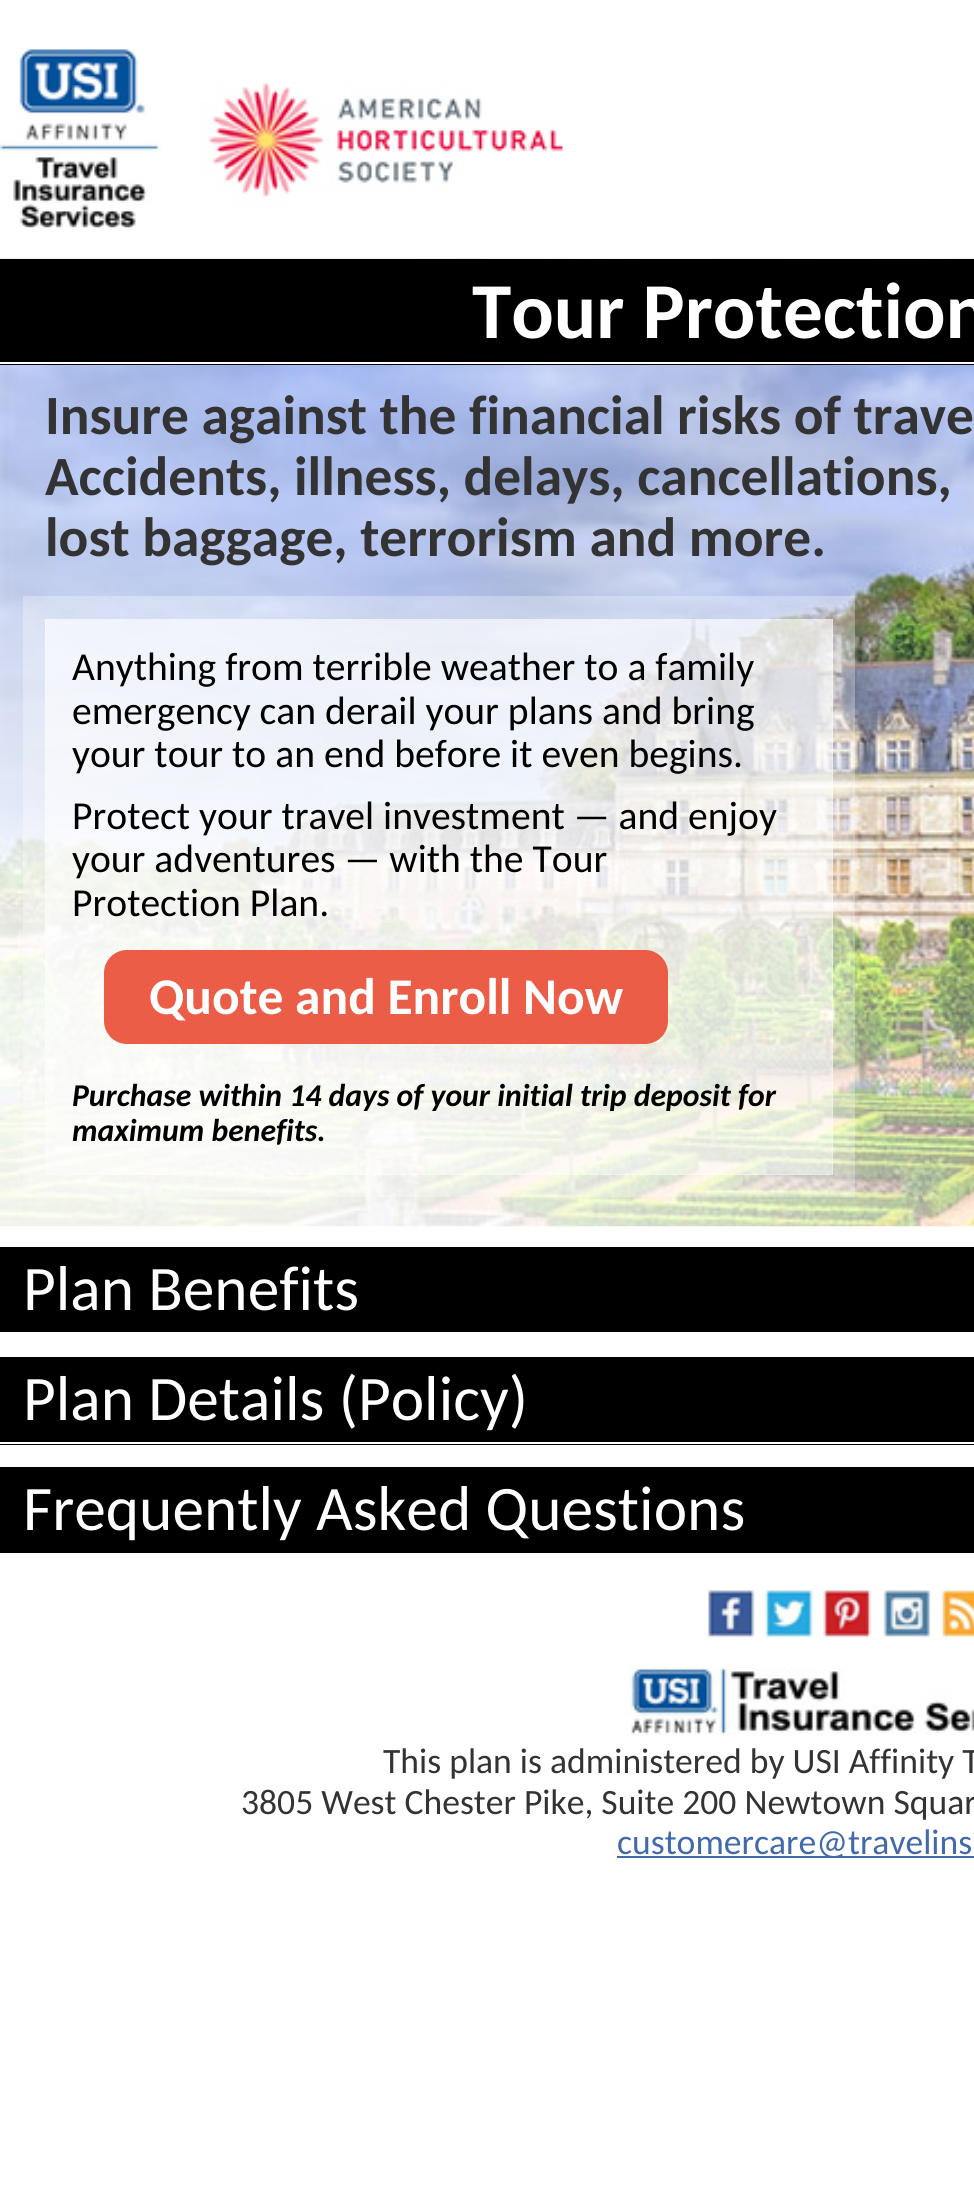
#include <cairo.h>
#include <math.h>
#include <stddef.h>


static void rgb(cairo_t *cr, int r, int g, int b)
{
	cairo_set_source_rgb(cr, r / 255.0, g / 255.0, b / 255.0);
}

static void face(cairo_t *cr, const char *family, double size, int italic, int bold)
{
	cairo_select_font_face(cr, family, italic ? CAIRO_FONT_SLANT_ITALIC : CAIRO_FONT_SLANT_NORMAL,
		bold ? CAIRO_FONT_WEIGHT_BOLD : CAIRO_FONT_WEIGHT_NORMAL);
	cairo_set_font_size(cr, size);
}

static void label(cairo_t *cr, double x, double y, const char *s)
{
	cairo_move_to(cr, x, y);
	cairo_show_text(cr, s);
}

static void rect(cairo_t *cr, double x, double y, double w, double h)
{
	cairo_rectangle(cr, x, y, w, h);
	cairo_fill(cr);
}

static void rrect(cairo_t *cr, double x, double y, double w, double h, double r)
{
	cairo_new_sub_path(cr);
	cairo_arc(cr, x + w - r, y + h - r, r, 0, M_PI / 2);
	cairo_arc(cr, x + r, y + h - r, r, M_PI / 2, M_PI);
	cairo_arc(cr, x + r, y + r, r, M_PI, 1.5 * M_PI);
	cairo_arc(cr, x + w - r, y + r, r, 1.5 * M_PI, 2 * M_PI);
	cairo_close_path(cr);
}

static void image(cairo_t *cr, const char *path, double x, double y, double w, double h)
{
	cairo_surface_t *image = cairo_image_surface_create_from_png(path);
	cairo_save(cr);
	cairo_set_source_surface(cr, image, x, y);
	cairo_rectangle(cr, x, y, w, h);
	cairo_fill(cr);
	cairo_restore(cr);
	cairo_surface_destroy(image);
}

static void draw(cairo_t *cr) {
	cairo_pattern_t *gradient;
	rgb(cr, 255, 255, 255);
	cairo_paint(cr);
	image(cr, "image0.png", 0, 48, 563, 180);
	image(cr, "image1.png", 0, 258, 974, 969);
	rgb(cr, 0, 0, 0);
	rect(cr, 0, 259, 974, 106);
	rgb(cr, 255, 255, 255);
	rect(cr, 0, 362, 974, 2);
	face(cr, "Carlito", 79.25, 0, 1);
	label(cr, 472, 338, "Tour Protection");
	face(cr, "Carlito", 55.4, 0, 1);
	rgb(cr, 51, 51, 51);
	label(cr, 45, 434, "Insure against the financial risks of trave");
	label(cr, 45, 495, "Accidents, illness, delays, cancellations,");
	label(cr, 45, 556, "lost baggage, terrorism and more.");
	cairo_rectangle(cr, 34.5, 607.5, 809, 578);
	cairo_set_source_rgba(cr, 1, 1, 1, 0.3);
	cairo_set_line_width(cr, 23);
	cairo_stroke(cr);
	gradient = cairo_pattern_create_linear(439, 619, 439, 1175);
	cairo_pattern_add_color_stop_rgba(gradient, 0, 1, 1, 1, 0.75);
	cairo_pattern_add_color_stop_rgba(gradient, 1, 1, 1, 1, 0.6);
	cairo_set_source(cr, gradient);
	cairo_pattern_destroy(gradient);
	rect(cr, 45, 619, 788, 556);
	face(cr, "Carlito", 39.6, 0, 0);
	rgb(cr, 0, 0, 0);
	label(cr, 72, 680, "Anything from terrible weather to a family");
	label(cr, 72, 724, "emergency can derail your plans and bring");
	label(cr, 72, 767, "your tour to an end before it even begins.");
	label(cr, 72, 829, "Protect your travel investment — and enjoy");
	label(cr, 72, 872, "your adventures — with the Tour");
	label(cr, 72, 916, "Protection Plan.");
	rgb(cr, 235, 93, 70);
	rrect(cr, 104, 950, 564, 94, 23);
	cairo_fill(cr);
	face(cr, "Carlito", 51.5, 0, 1);
	rgb(cr, 255, 255, 255);
	label(cr, 149, 1014, "Quote and Enroll Now");
	face(cr, "Carlito", 31.7, 1, 1);
	rgb(cr, 0, 0, 0);
	label(cr, 72, 1106, "Purchase within 14 days of your initial trip deposit for");
	label(cr, 72, 1141, "maximum benefits.");
	rect(cr, 0, 1247, 974, 85);
	face(cr, "Carlito", 63.4, 0, 0);
	rgb(cr, 255, 255, 255);
	label(cr, 23, 1310, "Plan Benefits");
	rgb(cr, 0, 0, 0);
	rect(cr, 0, 1357, 974, 88);
	rgb(cr, 255, 255, 255);
	rect(cr, 0, 1442, 974, 2);
	label(cr, 23, 1420, "Plan Details (Policy)");
	rgb(cr, 0, 0, 0);
	rect(cr, 0, 1467, 974, 86);
	rgb(cr, 255, 255, 255);
	label(cr, 23, 1530, "Frequently Asked Questions");
	image(cr, "image2.png", 706, 1589, 50, 49);
	image(cr, "image3.png", 765, 1589, 49, 49);
	image(cr, "image4.png", 823, 1589, 50, 49);
	image(cr, "image5.png", 883, 1590, 49, 48);
	image(cr, "image6.png", 940, 1588, 34, 50);
	image(cr, "image7.png", 630, 1667, 344, 68);
	face(cr, "Carlito", 35.6, 0, 0);
	rgb(cr, 51, 51, 51);
	label(cr, 383, 1773, "This plan is administered by USI Affinity T");
	label(cr, 241, 1814, "3805 West Chester Pike, Suite 200 Newtown Squar");
	rgb(cr, 65, 105, 172);
	rect(cr, 617, 1856, 357, 2);
	label(cr, 617, 1854, "customercare@travelins");
}

int main(void) {
	cairo_surface_t *surface = cairo_image_surface_create(CAIRO_FORMAT_RGB24, 974, 2204);
	cairo_t *cr = cairo_create(surface);
	cairo_font_options_t *options = cairo_font_options_create();
	cairo_font_options_set_hint_metrics(options, CAIRO_HINT_METRICS_OFF);
	cairo_font_options_set_hint_style(options, CAIRO_HINT_STYLE_NONE);
	cairo_set_font_options(cr, options);
	cairo_set_miter_limit(cr, 4);
	draw(cr);
	cairo_surface_write_to_png(surface, "render.png");
	cairo_font_options_destroy(options);
	cairo_destroy(cr);
	cairo_surface_destroy(surface);
	return 0;
}
